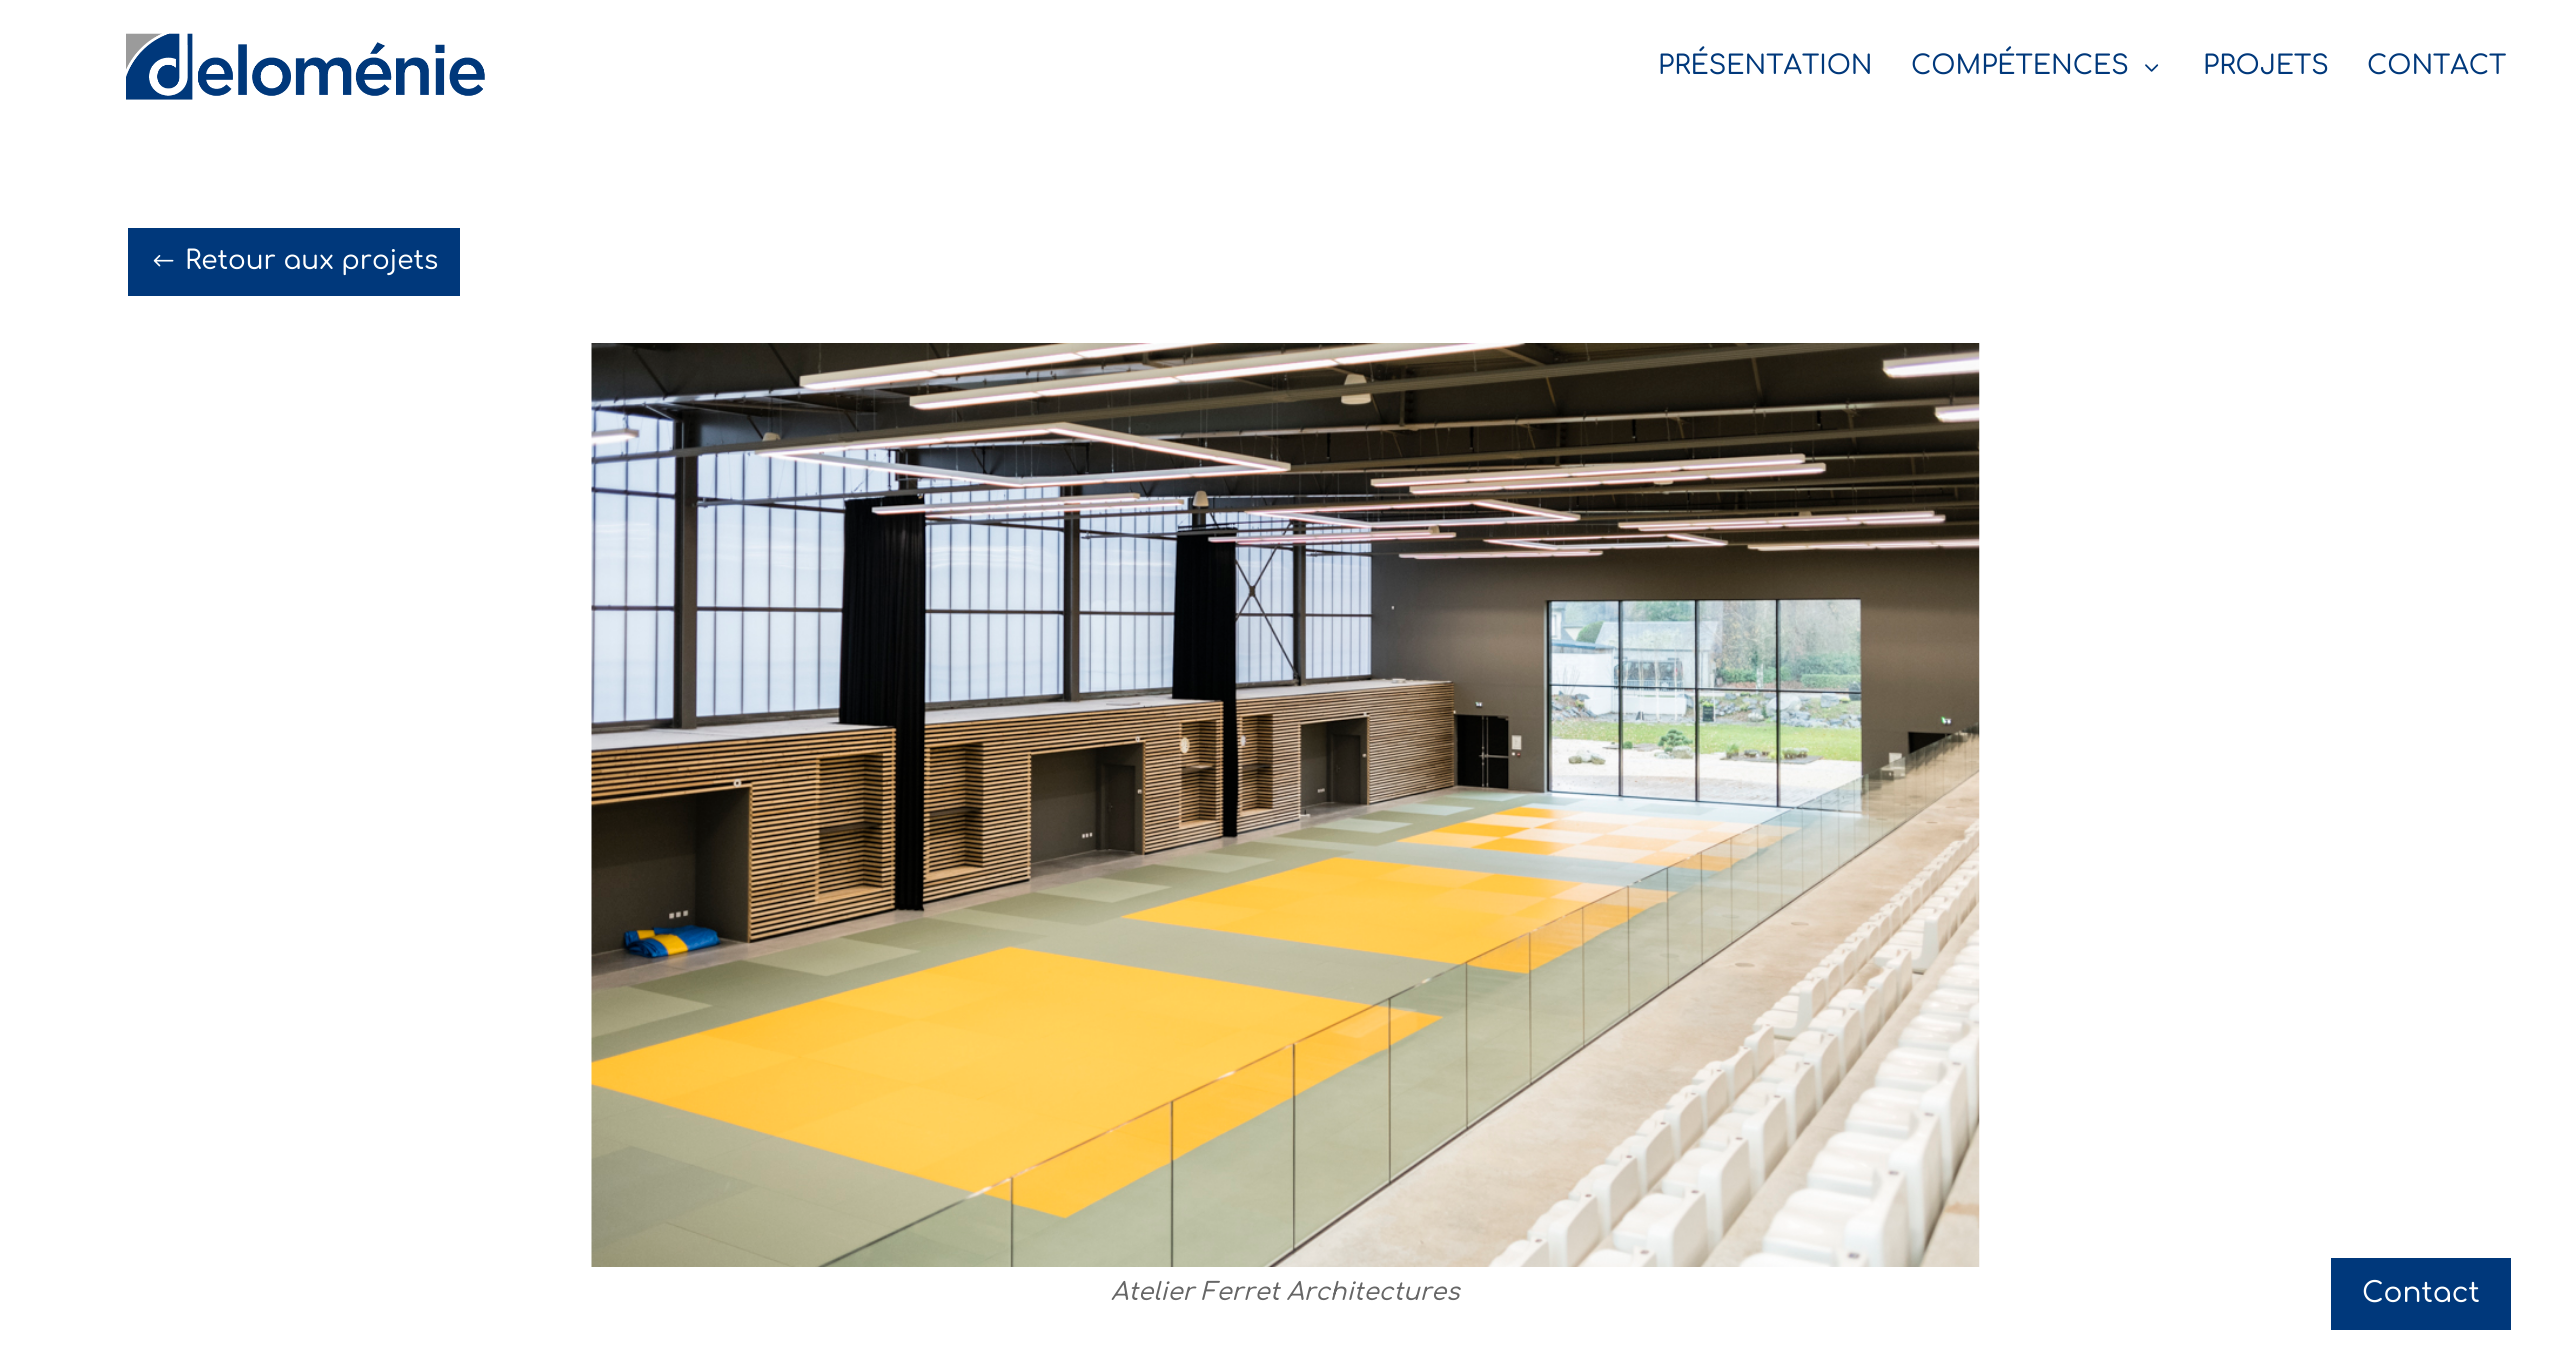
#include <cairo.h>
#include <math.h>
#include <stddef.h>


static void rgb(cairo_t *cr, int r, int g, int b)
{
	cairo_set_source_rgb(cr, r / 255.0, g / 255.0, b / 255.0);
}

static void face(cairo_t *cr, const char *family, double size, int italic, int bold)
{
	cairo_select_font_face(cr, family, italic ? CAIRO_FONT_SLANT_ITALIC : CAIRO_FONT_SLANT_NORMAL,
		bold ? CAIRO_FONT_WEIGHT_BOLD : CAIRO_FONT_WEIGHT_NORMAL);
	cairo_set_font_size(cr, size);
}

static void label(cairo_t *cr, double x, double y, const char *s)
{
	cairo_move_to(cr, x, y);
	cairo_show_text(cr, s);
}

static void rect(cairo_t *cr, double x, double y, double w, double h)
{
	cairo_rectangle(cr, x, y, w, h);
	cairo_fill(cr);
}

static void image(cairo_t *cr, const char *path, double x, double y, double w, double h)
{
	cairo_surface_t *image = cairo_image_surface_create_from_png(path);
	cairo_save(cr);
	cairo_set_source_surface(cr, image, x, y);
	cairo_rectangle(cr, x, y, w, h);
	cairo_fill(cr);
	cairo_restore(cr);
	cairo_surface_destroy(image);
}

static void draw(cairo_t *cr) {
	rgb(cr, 255, 255, 255);
	cairo_paint(cr);
	image(cr, "image0.png", 126, 33, 359, 67);
	face(cr, "Comfortaa Medium", 26.25, 0, 0);
	rgb(cr, 0, 56, 123);
	label(cr, 1658, 74, "PRÉSENTATION");
	label(cr, 1911, 74, "COMPÉTENCES");
	image(cr, "image1.png", 2145, 64, 14, 8);
	label(cr, 2203, 74, "PROJETS");
	label(cr, 2367, 74, "CONTACT");
	rect(cr, 128, 228, 332, 68);
	image(cr, "image2.png", 153, 255, 21, 12);
	rgb(cr, 255, 255, 255);
	label(cr, 185, 269, "Retour aux projets");
	image(cr, "image3.png", 591, 343, 1389, 924);
	face(cr, "Comfortaa Medium", 24.5, 1, 0);
	rgb(cr, 102, 102, 102);
	label(cr, 1111, 1300, "Atelier Ferret Architectures");
	rgb(cr, 0, 56, 123);
	rect(cr, 2331, 1258, 180, 72);
	face(cr, "Comfortaa Medium", 28, 0, 0);
	rgb(cr, 255, 255, 255);
	label(cr, 2362, 1302, "Contact");
}

int main(void) {
	cairo_surface_t *surface = cairo_image_surface_create(CAIRO_FORMAT_RGB24, 2570, 1346);
	cairo_t *cr = cairo_create(surface);
	cairo_font_options_t *options = cairo_font_options_create();
	cairo_font_options_set_hint_metrics(options, CAIRO_HINT_METRICS_OFF);
	cairo_font_options_set_hint_style(options, CAIRO_HINT_STYLE_NONE);
	cairo_set_font_options(cr, options);
	cairo_set_miter_limit(cr, 4);
	draw(cr);
	cairo_surface_write_to_png(surface, "render.png");
	cairo_font_options_destroy(options);
	cairo_destroy(cr);
	cairo_surface_destroy(surface);
	return 0;
}
